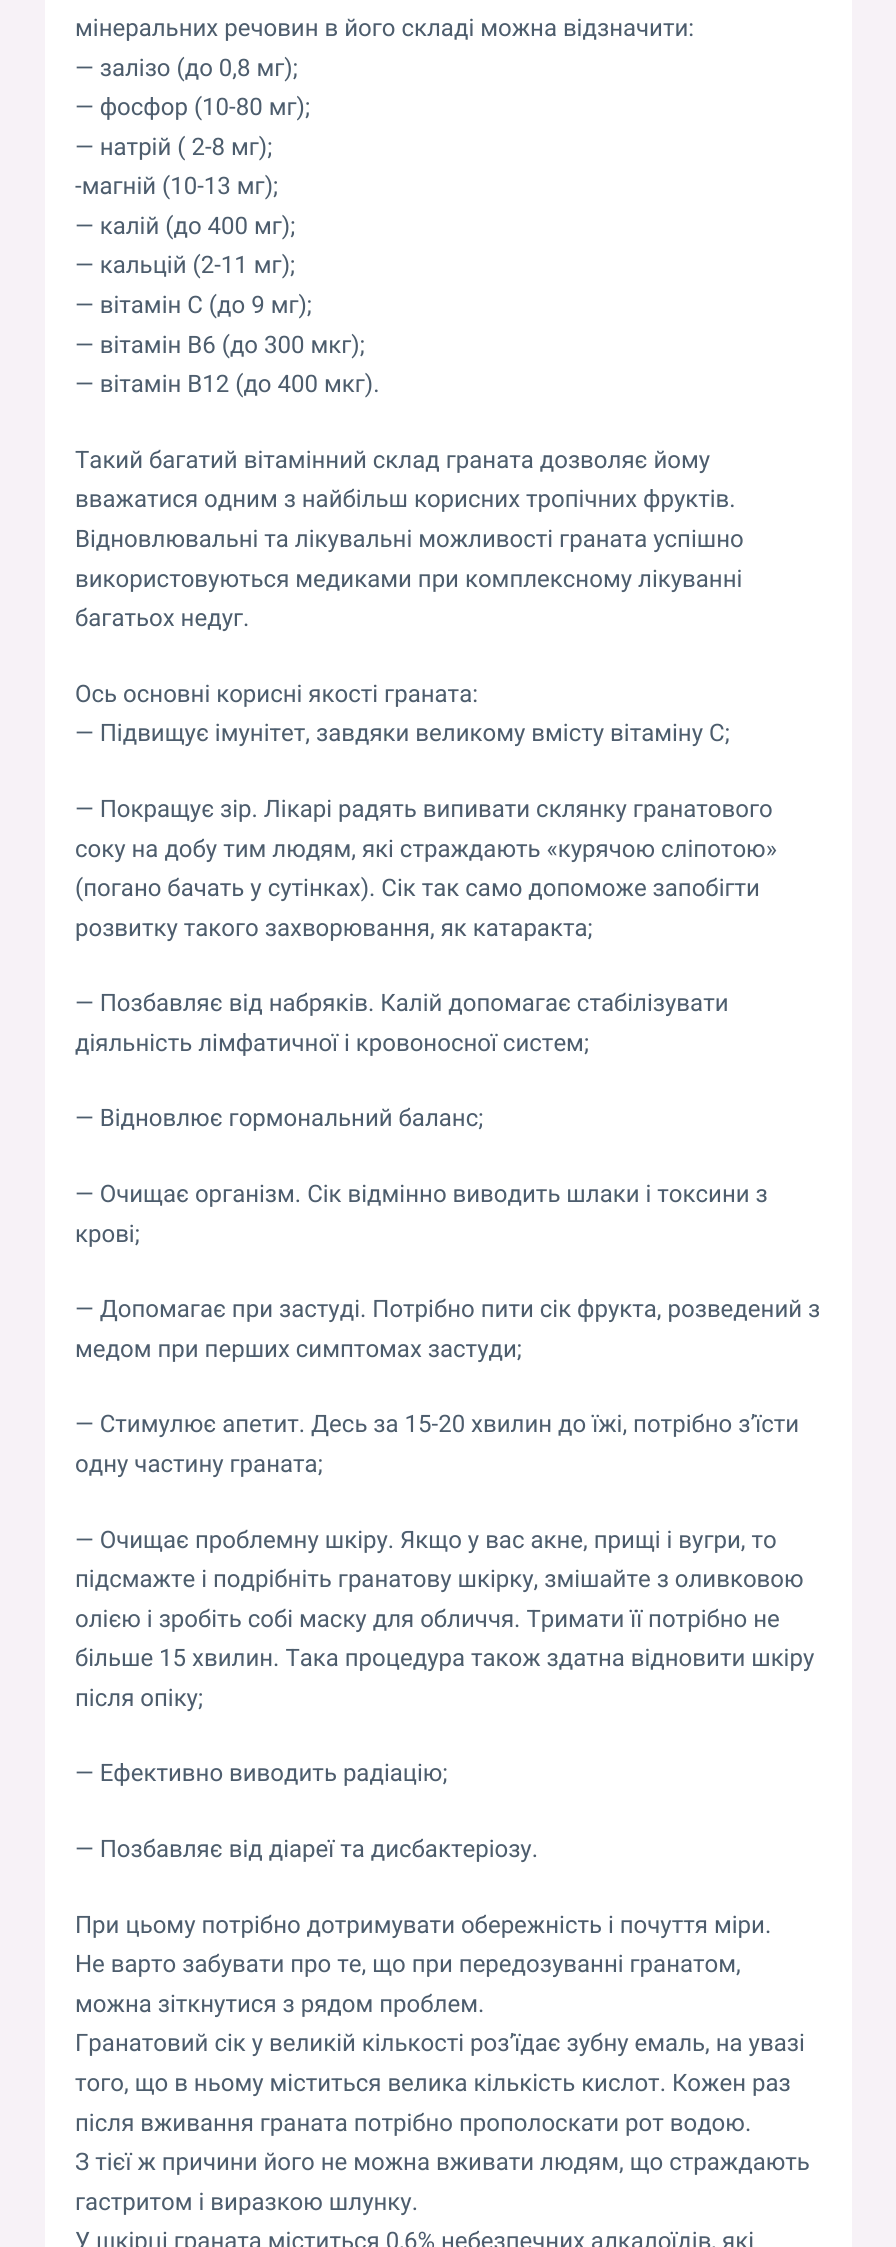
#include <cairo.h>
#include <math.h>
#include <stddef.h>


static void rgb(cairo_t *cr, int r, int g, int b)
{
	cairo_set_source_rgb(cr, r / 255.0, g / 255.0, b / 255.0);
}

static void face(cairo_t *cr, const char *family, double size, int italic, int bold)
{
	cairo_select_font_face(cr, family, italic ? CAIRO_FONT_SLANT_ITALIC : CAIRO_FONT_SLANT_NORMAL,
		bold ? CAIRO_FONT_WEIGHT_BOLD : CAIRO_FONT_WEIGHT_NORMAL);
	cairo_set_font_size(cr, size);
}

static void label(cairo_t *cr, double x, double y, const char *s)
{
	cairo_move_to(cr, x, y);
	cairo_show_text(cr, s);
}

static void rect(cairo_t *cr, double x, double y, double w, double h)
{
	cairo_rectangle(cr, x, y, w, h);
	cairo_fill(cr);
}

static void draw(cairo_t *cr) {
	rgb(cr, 247, 242, 247);
	cairo_paint(cr);
	rgb(cr, 255, 255, 255);
	rect(cr, 45, 0, 807, 2247);
	face(cr, "Roboto", 24, 0, 0);
	rgb(cr, 77, 93, 109);
	label(cr, 75, 36, "мінеральних речовин в його складі можна відзначити:");
	label(cr, 75, 76, "— залізо (до 0,8 мг);");
	label(cr, 75, 115, "— фосфор (10-80 мг);");
	label(cr, 75, 155, "— натрій ( 2-8 мг);");
	label(cr, 75, 194, "-магній (10-13 мг);");
	label(cr, 75, 234, "— калій (до 400 мг);");
	label(cr, 75, 273, "— кальцій (2-11 мг);");
	label(cr, 75, 313, "— вітамін С (до 9 мг);");
	label(cr, 75, 353, "— вітамін В6 (до 300 мкг);");
	label(cr, 75, 392, "— вітамін В12 (до 400 мкг).");
	label(cr, 75, 468, "Такий багатий вітамінний склад граната дозволяє йому");
	label(cr, 75, 507, "вважатися одним з найбільш корисних тропічних фруктів.");
	label(cr, 75, 547, "Відновлювальні та лікувальні можливості граната успішно");
	label(cr, 75, 587, "використовуються медиками при комплексному лікуванні");
	label(cr, 75, 626, "багатьох недуг.");
	label(cr, 75, 702, "Ось основні корисні якості граната:");
	label(cr, 75, 741, "— Підвищує імунітет, завдяки великому вмісту вітаміну С;");
	label(cr, 75, 817, "— Покращує зір. Лікарі радять випивати склянку гранатового");
	label(cr, 75, 857, "соку на добу тим людям, які страждають «курячою сліпотою»");
	label(cr, 75, 896, "(погано бачать у сутінках). Сік так само допоможе запобігти");
	label(cr, 75, 936, "розвитку такого захворювання, як катаракта;");
	label(cr, 75, 1011, "— Позбавляє від набряків. Калій допомагає стабілізувати");
	label(cr, 75, 1051, "діяльність лімфатичної і кровоносної систем;");
	label(cr, 75, 1126, "— Відновлює гормональний баланс;");
	label(cr, 75, 1202, "— Очищає організм. Сік відмінно виводить шлаки і токсини з");
	label(cr, 75, 1242, "крові;");
	label(cr, 75, 1317, "— Допомагає при застуді. Потрібно пити сік фрукта, розведений з");
	label(cr, 75, 1357, "медом при перших симптомах застуди;");
	label(cr, 75, 1432, "— Стимулює апетит. Десь за 15-20 хвилин до їжі, потрібно з’їсти");
	label(cr, 75, 1472, "одну частину граната;");
	label(cr, 75, 1548, "— Очищає проблемну шкіру. Якщо у вас акне, прищі і вугри, то");
	label(cr, 75, 1587, "підсмажте і подрібніть гранатову шкірку, змішайте з оливковою");
	label(cr, 75, 1627, "олією і зробіть собі маску для обличчя. Тримати її потрібно не");
	label(cr, 75, 1666, "більше 15 хвилин. Така процедура також здатна відновити шкіру");
	label(cr, 75, 1706, "після опіку;");
	label(cr, 75, 1781, "— Ефективно виводить радіацію;");
	label(cr, 75, 1857, "— Позбавляє від діареї та дисбактеріозу.");
	label(cr, 75, 1933, "При цьому потрібно дотримувати обережність і почуття міри.");
	label(cr, 75, 1972, "Не варто забувати про те, що при передозуванні гранатом,");
	label(cr, 75, 2012, "можна зіткнутися з рядом проблем.");
	label(cr, 75, 2051, "Гранатовий сік у великій кількості роз’їдає зубну емаль, на увазі");
	label(cr, 75, 2091, "того, що в ньому міститься велика кількість кислот. Кожен раз");
	label(cr, 75, 2131, "після вживання граната потрібно прополоскати рот водою.");
	label(cr, 75, 2170, "З тієї ж причини його не можна вживати людям, що страждають");
	label(cr, 75, 2210, "гастритом і виразкою шлунку.");
	label(cr, 75, 2249, "У шкірці граната міститься 0,6% небезпечних алкалоїдів, які");
}

int main(void) {
	cairo_surface_t *surface = cairo_image_surface_create(CAIRO_FORMAT_RGB24, 896, 2247);
	cairo_t *cr = cairo_create(surface);
	cairo_font_options_t *options = cairo_font_options_create();
	cairo_font_options_set_hint_metrics(options, CAIRO_HINT_METRICS_OFF);
	cairo_font_options_set_hint_style(options, CAIRO_HINT_STYLE_NONE);
	cairo_set_font_options(cr, options);
	cairo_set_miter_limit(cr, 4);
	draw(cr);
	cairo_surface_write_to_png(surface, "render.png");
	cairo_font_options_destroy(options);
	cairo_destroy(cr);
	cairo_surface_destroy(surface);
	return 0;
}
